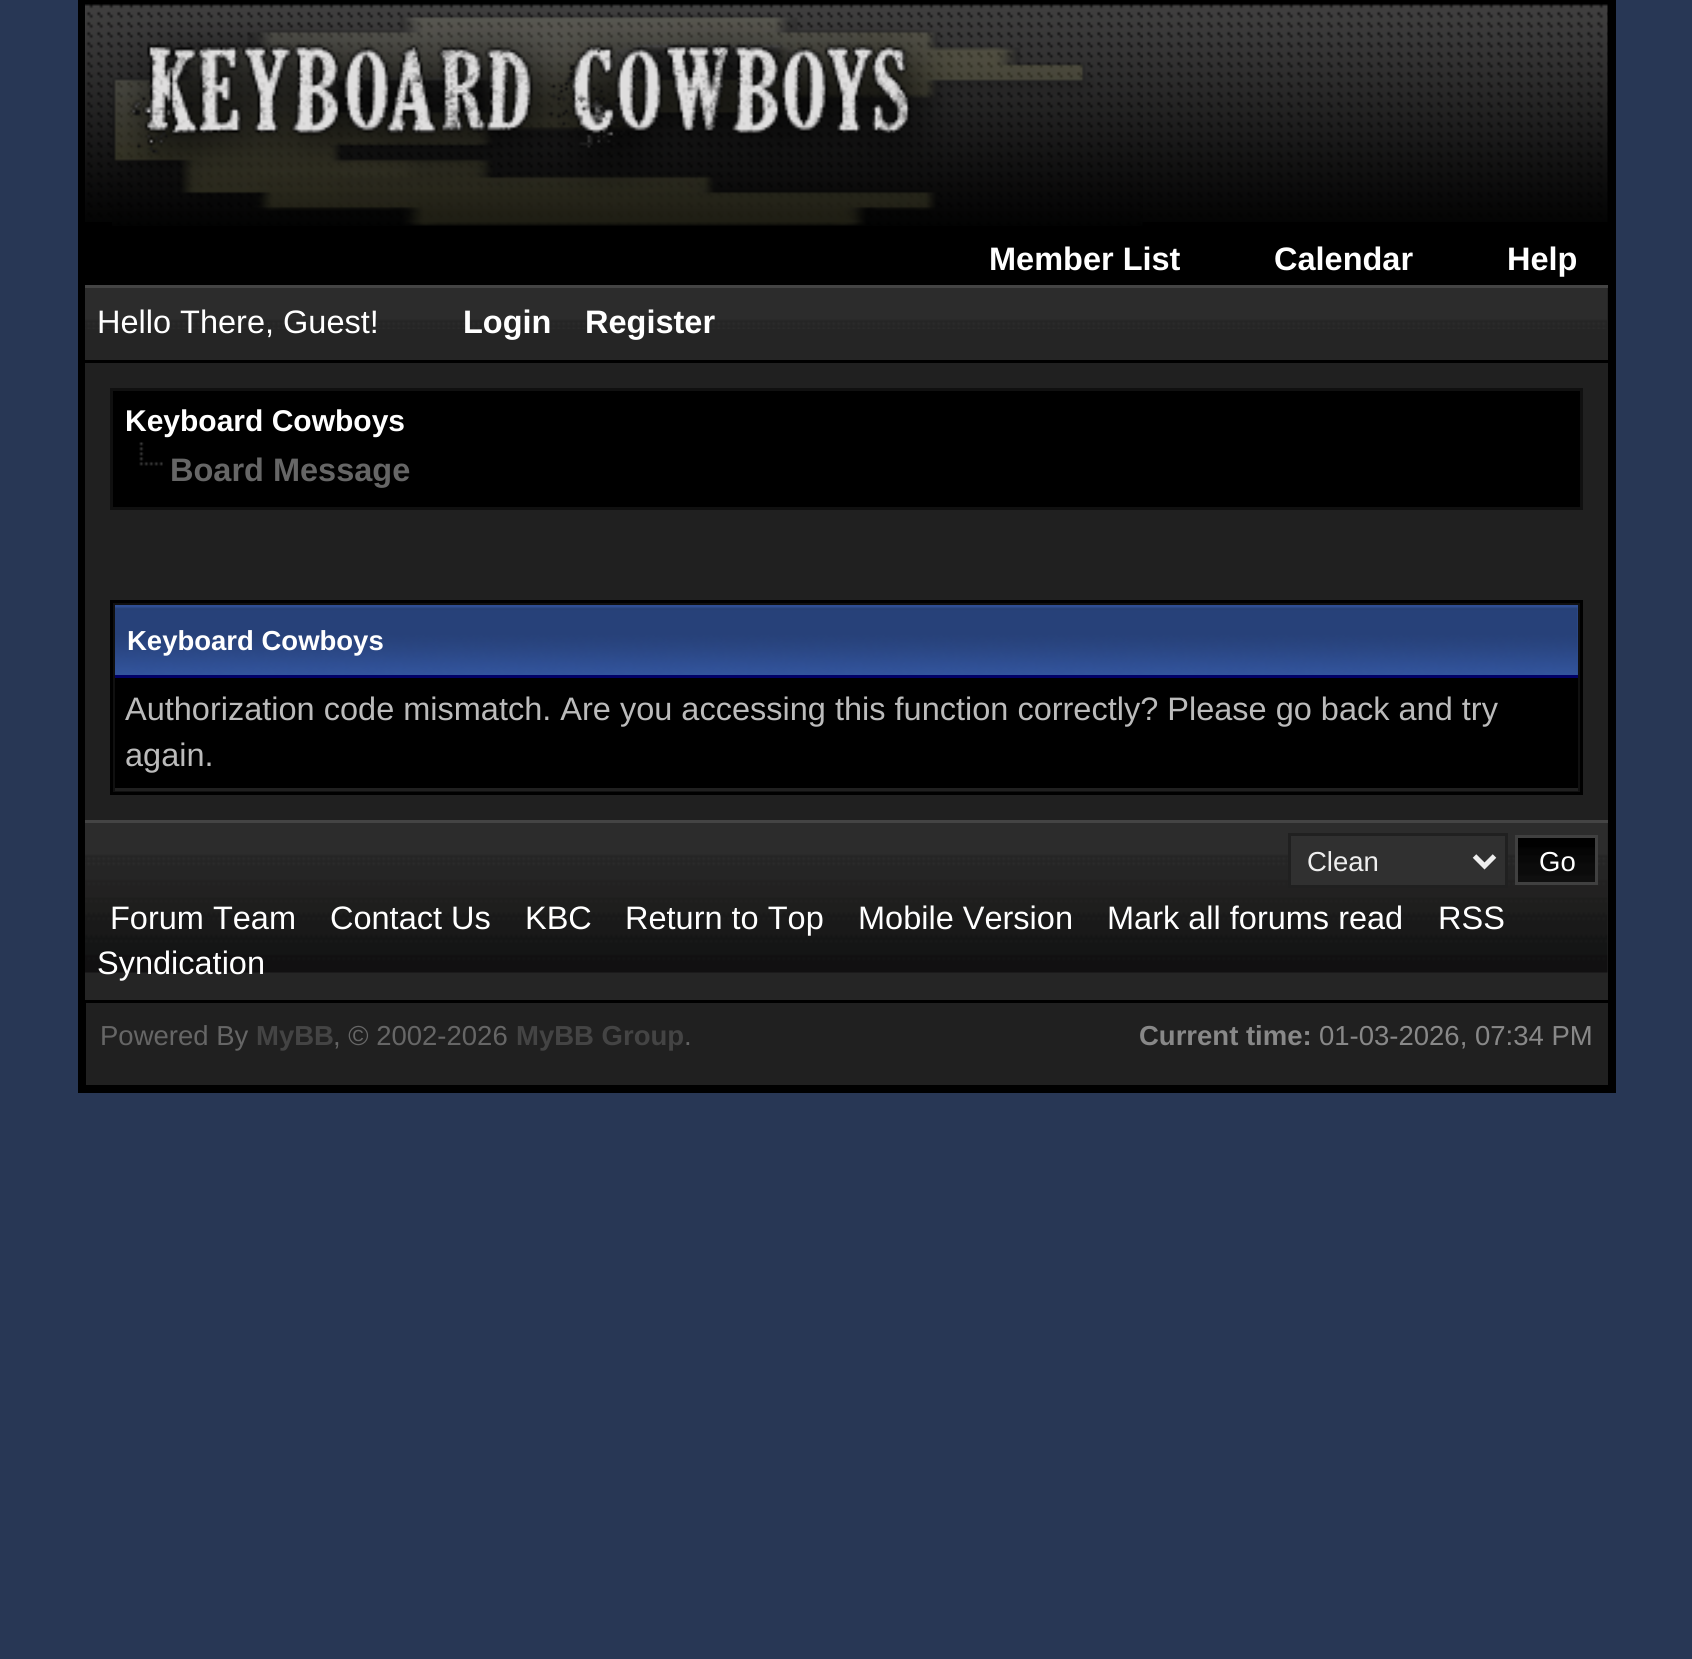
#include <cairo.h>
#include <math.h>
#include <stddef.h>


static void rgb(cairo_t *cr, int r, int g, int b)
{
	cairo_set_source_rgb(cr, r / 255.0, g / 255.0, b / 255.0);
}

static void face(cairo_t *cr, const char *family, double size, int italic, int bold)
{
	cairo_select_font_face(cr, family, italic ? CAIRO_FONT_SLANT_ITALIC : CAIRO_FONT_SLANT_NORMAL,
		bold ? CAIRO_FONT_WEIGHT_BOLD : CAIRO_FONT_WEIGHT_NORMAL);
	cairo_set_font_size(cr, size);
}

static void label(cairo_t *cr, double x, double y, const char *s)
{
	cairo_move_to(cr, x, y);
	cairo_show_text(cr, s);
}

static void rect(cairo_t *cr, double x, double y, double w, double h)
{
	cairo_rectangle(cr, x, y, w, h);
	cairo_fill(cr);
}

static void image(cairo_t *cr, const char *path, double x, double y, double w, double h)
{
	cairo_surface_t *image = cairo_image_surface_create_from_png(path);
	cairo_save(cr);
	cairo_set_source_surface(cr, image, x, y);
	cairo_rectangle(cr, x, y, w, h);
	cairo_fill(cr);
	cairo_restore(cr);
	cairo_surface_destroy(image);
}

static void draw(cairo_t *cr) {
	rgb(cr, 40, 55, 85);
	cairo_paint(cr);
	rgb(cr, 32, 32, 32);
	rect(cr, 86, 1003, 1522, 82);
	rgb(cr, 0, 0, 0);
	rect(cr, 1608, 0, 8, 1093);
	rect(cr, 78, 1085, 1537, 8);
	rect(cr, 78, 0, 8, 1093);
	rect(cr, 86, 0, 1522, 283);
	image(cr, "image0.png", 85, 4, 1523, 218);
	rect(cr, 85, 283, 1523, 2);
	image(cr, "image1.png", 112, 5, 1031, 221);
	face(cr, "Liberation Sans", 32.5, 0, 1);
	rgb(cr, 255, 255, 255);
	label(cr, 989, 270, "Member List");
	label(cr, 1274, 270, "Calendar");
	label(cr, 1507, 270, "Help");
	rgb(cr, 37, 37, 37);
	rect(cr, 85, 288, 1523, 72);
	image(cr, "image2.png", 85, 288, 1522, 41);
	rgb(cr, 68, 68, 68);
	rect(cr, 85, 285, 1523, 3);
	rgb(cr, 0, 0, 0);
	rect(cr, 85, 360, 1523, 3);
	face(cr, "Liberation Sans", 32.5, 0, 0);
	rgb(cr, 255, 255, 255);
	label(cr, 97, 333, "Hello There, Guest!");
	face(cr, "Liberation Sans", 32.5, 0, 1);
	label(cr, 463, 333, "Login");
	label(cr, 585, 333, "Register");
	rgb(cr, 32, 32, 32);
	rect(cr, 85, 363, 1523, 457);
	rgb(cr, 0, 0, 0);
	cairo_rectangle(cr, 111.5, 389.5, 1470, 119);
	cairo_fill_preserve(cr);
	rgb(cr, 16, 16, 16);
	cairo_set_line_width(cr, 3);
	cairo_stroke(cr);
	face(cr, "Liberation Sans", 30, 0, 1);
	rgb(cr, 255, 255, 255);
	label(cr, 125, 431, "Keyboard Cowboys");
	image(cr, "image3.png", 139, 442, 24, 24);
	face(cr, "Liberation Sans", 32.5, 0, 1);
	rgb(cr, 102, 102, 102);
	label(cr, 170, 481, "Board Message");
	rgb(cr, 16, 16, 16);
	cairo_rectangle(cr, 111.5, 601.5, 1470, 192);
	cairo_fill_preserve(cr);
	rgb(cr, 0, 0, 0);
	cairo_stroke(cr);
	rgb(cr, 48, 79, 147);
	rect(cr, 115, 605, 1463, 70);
	image(cr, "image4.png", 115, 607, 1463, 68);
	rgb(cr, 0, 0, 102);
	rect(cr, 115, 675, 1463, 3);
	face(cr, "Liberation Sans", 27.5, 0, 1);
	rgb(cr, 255, 255, 255);
	label(cr, 127, 650, "Keyboard Cowboys");
	rgb(cr, 0, 0, 0);
	rect(cr, 115, 678, 1463, 110);
	rgb(cr, 32, 32, 32);
	rect(cr, 115, 788, 1463, 3);
	face(cr, "Liberation Sans", 32.5, 0, 0);
	rgb(cr, 187, 187, 187);
	label(cr, 125, 720, "Authorization code mismatch. Are you accessing this function correctly? Please go back and try");
	label(cr, 125, 766, "again.");
	rgb(cr, 37, 37, 37);
	rect(cr, 85, 823, 1523, 177);
	image(cr, "image5.png", 85, 823, 1523, 150);
	rgb(cr, 68, 68, 68);
	rect(cr, 85, 820, 1523, 3);
	rgb(cr, 0, 0, 0);
	rect(cr, 85, 1000, 1523, 3);
	rgb(cr, 48, 48, 48);
	cairo_rectangle(cr, 1289.5, 834.5, 217, 52);
	cairo_fill_preserve(cr);
	rgb(cr, 32, 32, 32);
	cairo_stroke(cr);
	cairo_new_path(cr);
	cairo_move_to(cr, 1474.5, 856);
	cairo_line_to(cr, 1484.5, 866);
	cairo_line_to(cr, 1494.5, 856);
	rgb(cr, 238, 238, 238);
	cairo_set_line_width(cr, 5);
	cairo_stroke(cr);
	face(cr, "Liberation Sans", 27.5, 0, 0);
	label(cr, 1307, 871, "Clean");
	image(cr, "image6.png", 1518, 838, 77, 44);
	cairo_rectangle(cr, 1516.5, 836.5, 80, 47);
	rgb(cr, 64, 64, 64);
	cairo_set_line_width(cr, 3);
	cairo_stroke(cr);
	rgb(cr, 255, 255, 255);
	label(cr, 1539, 871, "Go");
	face(cr, "Liberation Sans", 32.5, 0, 0);
	label(cr, 110, 929, "Forum Team");
	label(cr, 330, 929, "Contact Us");
	label(cr, 525, 929, "KBC");
	label(cr, 625, 929, "Return to Top");
	label(cr, 858, 929, "Mobile Version");
	label(cr, 1107, 929, "Mark all forums read");
	label(cr, 1438, 929, "RSS");
	label(cr, 97, 974, "Syndication");
	face(cr, "Liberation Sans", 27.5, 0, 0);
	rgb(cr, 102, 102, 102);
	label(cr, 100, 1045, "Powered By");
	face(cr, "Liberation Sans", 27.5, 0, 1);
	rgb(cr, 68, 68, 68);
	label(cr, 256, 1045, "MyBB");
	face(cr, "Liberation Sans", 27.5, 0, 0);
	rgb(cr, 102, 102, 102);
	label(cr, 333, 1045, ", © 2002-2026");
	face(cr, "Liberation Sans", 27.5, 0, 1);
	rgb(cr, 68, 68, 68);
	label(cr, 516, 1045, "MyBB Group");
	face(cr, "Liberation Sans", 27.5, 0, 0);
	rgb(cr, 102, 102, 102);
	label(cr, 684, 1045, ".");
	face(cr, "Liberation Sans", 27.5, 0, 1);
	rgb(cr, 136, 136, 136);
	label(cr, 1139, 1045, "Current time:");
	face(cr, "Liberation Sans", 27.5, 0, 0);
	label(cr, 1319, 1045, "01-03-2026, 07:34 PM");
}

int main(void) {
	cairo_surface_t *surface = cairo_image_surface_create(CAIRO_FORMAT_RGB24, 1692, 1659);
	cairo_t *cr = cairo_create(surface);
	cairo_font_options_t *options = cairo_font_options_create();
	cairo_font_options_set_hint_metrics(options, CAIRO_HINT_METRICS_OFF);
	cairo_font_options_set_hint_style(options, CAIRO_HINT_STYLE_NONE);
	cairo_set_font_options(cr, options);
	cairo_set_miter_limit(cr, 4);
	draw(cr);
	cairo_surface_write_to_png(surface, "render.png");
	cairo_font_options_destroy(options);
	cairo_destroy(cr);
	cairo_surface_destroy(surface);
	return 0;
}
